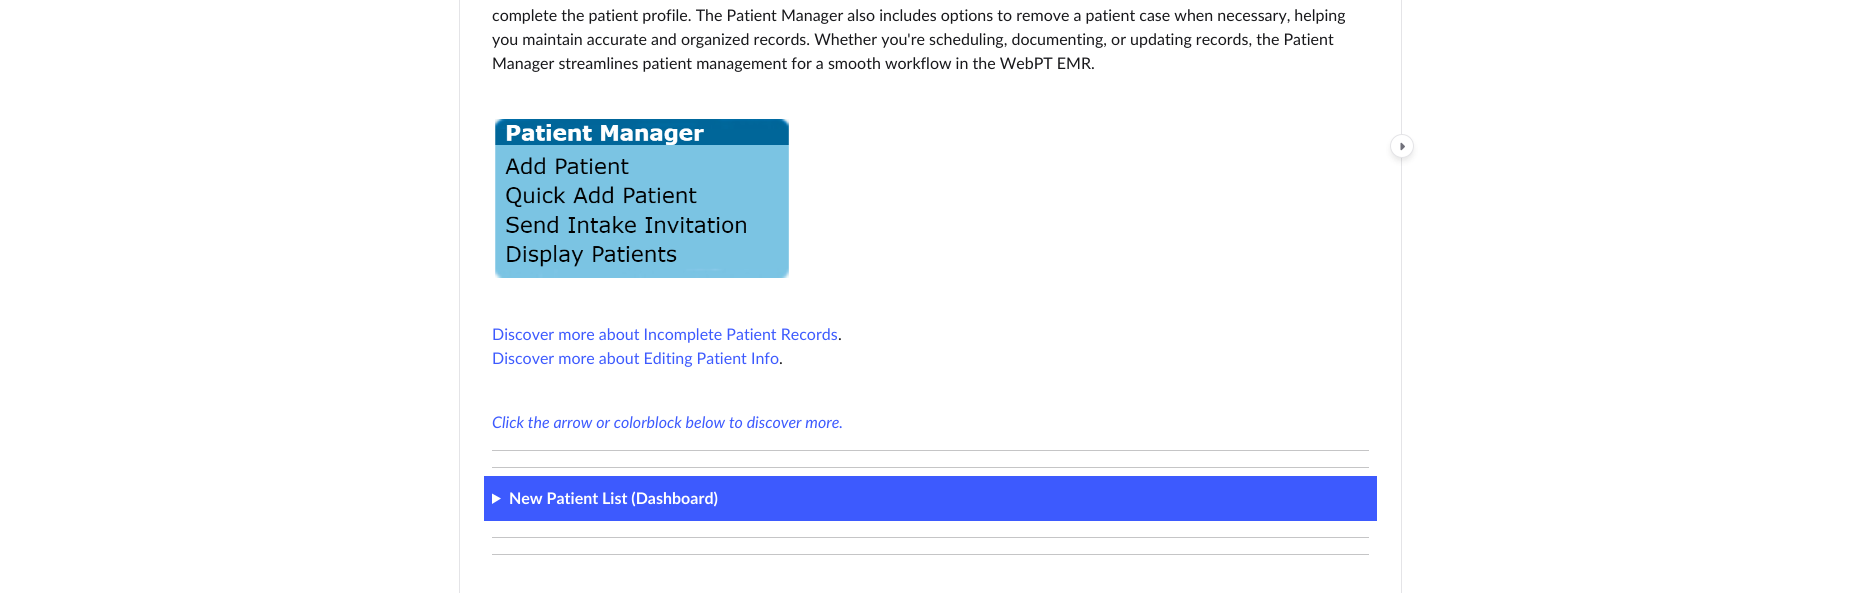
#include <cairo.h>
#include <math.h>
#include <stddef.h>


static void rgb(cairo_t *cr, int r, int g, int b)
{
	cairo_set_source_rgb(cr, r / 255.0, g / 255.0, b / 255.0);
}

static void face(cairo_t *cr, const char *family, double size, int italic, int bold)
{
	cairo_select_font_face(cr, family, italic ? CAIRO_FONT_SLANT_ITALIC : CAIRO_FONT_SLANT_NORMAL,
		bold ? CAIRO_FONT_WEIGHT_BOLD : CAIRO_FONT_WEIGHT_NORMAL);
	cairo_set_font_size(cr, size);
}

static void label(cairo_t *cr, double x, double y, const char *s)
{
	cairo_move_to(cr, x, y);
	cairo_show_text(cr, s);
}

static void rect(cairo_t *cr, double x, double y, double w, double h)
{
	cairo_rectangle(cr, x, y, w, h);
	cairo_fill(cr);
}

static void rrect(cairo_t *cr, double x, double y, double w, double h, double r)
{
	cairo_new_sub_path(cr);
	cairo_arc(cr, x + w - r, y + h - r, r, 0, M_PI / 2);
	cairo_arc(cr, x + r, y + h - r, r, M_PI / 2, M_PI);
	cairo_arc(cr, x + r, y + r, r, M_PI, 1.5 * M_PI);
	cairo_arc(cr, x + w - r, y + r, r, 1.5 * M_PI, 2 * M_PI);
	cairo_close_path(cr);
}

static void soft_shadow(cairo_t *cr, double x, double y, double w, double h, double r, double blur, double alpha)
{
	cairo_push_group_with_content(cr, CAIRO_CONTENT_ALPHA);
	cairo_set_operator(cr, CAIRO_OPERATOR_SOURCE);
	for (int i = 15; i >= -15 && fmin(w, h) + blur * i / 3 > 0; i -= 2) {
		double e = blur * i / 6;
		cairo_set_source_rgba(cr, 0, 0, 0, alpha * erfc((i - 1) / 8.5) / 2);
		rrect(cr, x - e, y - e, w + 2 * e, h + 2 * e, fmax(0, fmin(r + e + blur * .6, fmin(w, h) / 2 + e)));
		cairo_fill(cr);
	}
	cairo_pattern_t *soft = cairo_pop_group(cr);
	cairo_mask(cr, soft);
	cairo_pattern_destroy(soft);
}

static void image(cairo_t *cr, const char *path, double x, double y, double w, double h)
{
	cairo_surface_t *image = cairo_image_surface_create_from_png(path);
	cairo_save(cr);
	cairo_set_source_surface(cr, image, x, y);
	cairo_rectangle(cr, x, y, w, h);
	cairo_fill(cr);
	cairo_restore(cr);
	cairo_surface_destroy(image);
}

static void draw(cairo_t *cr) {
	rgb(cr, 255, 255, 255);
	cairo_paint(cr);
	rgb(cr, 228, 228, 231);
	rect(cr, 459, 0, 1, 593);
	face(cr, "Lato", 16, 0, 0);
	rgb(cr, 24, 24, 27);
	label(cr, 492, 21, "complete the patient profile. The Patient Manager also includes options to remove a patient case when necessary, helping");
	label(cr, 492, 45, "you maintain accurate and organized records. Whether you're scheduling, documenting, or updating records, the Patient");
	label(cr, 492, 69, "Manager streamlines patient management for a smooth workflow in the WebPT EMR.");
	image(cr, "image0.png", 495, 119, 294, 159);
	rgb(cr, 61, 90, 254);
	label(cr, 492, 340, "Discover more about Incomplete Patient Records");
	rgb(cr, 24, 24, 27);
	label(cr, 838, 340, ".");
	rgb(cr, 61, 90, 254);
	label(cr, 492, 364, "Discover more about Editing Patient Info");
	rgb(cr, 24, 24, 27);
	label(cr, 779, 364, ".");
	face(cr, "Lato", 16, 1, 0);
	rgb(cr, 61, 90, 254);
	label(cr, 492, 428, "Click the arrow or colorblock below to discover more.");
	rgb(cr, 197, 197, 198);
	rect(cr, 492, 450, 877, 1);
	rect(cr, 492, 467, 877, 1);
	rgb(cr, 61, 90, 254);
	rect(cr, 484, 476, 893, 45);
	rgb(cr, 255, 255, 255);
	cairo_new_path(cr);
	cairo_move_to(cr, 492, 493.5);
	cairo_line_to(cr, 501, 498.5);
	cairo_line_to(cr, 492, 504);
	cairo_close_path(cr);
	cairo_fill(cr);
	face(cr, "Lato", 16, 0, 1);
	label(cr, 509, 504, "New Patient List (Dashboard)");
	rgb(cr, 197, 197, 198);
	rect(cr, 492, 537, 877, 1);
	rect(cr, 492, 554, 877, 1);
	rgb(cr, 228, 228, 231);
	rect(cr, 1401, 0, 1, 593);
	rgb(cr, 0, 0, 0);
	soft_shadow(cr, 1391, 139, 22, 22, 11, 3, 0.1);
	rgb(cr, 255, 255, 255);
	cairo_arc(cr, 1402, 146, 11.5, 0, 2 * M_PI);
	cairo_fill_preserve(cr);
	rgb(cr, 228, 228, 231);
	cairo_set_line_width(cr, 1);
	cairo_stroke(cr);
	image(cr, "image1.png", 1400, 142, 5, 9);
}

int main(void) {
	cairo_surface_t *surface = cairo_image_surface_create(CAIRO_FORMAT_RGB24, 1861, 593);
	cairo_t *cr = cairo_create(surface);
	cairo_font_options_t *options = cairo_font_options_create();
	cairo_font_options_set_hint_metrics(options, CAIRO_HINT_METRICS_OFF);
	cairo_font_options_set_hint_style(options, CAIRO_HINT_STYLE_NONE);
	cairo_set_font_options(cr, options);
	cairo_set_miter_limit(cr, 4);
	draw(cr);
	cairo_surface_write_to_png(surface, "render.png");
	cairo_font_options_destroy(options);
	cairo_destroy(cr);
	cairo_surface_destroy(surface);
	return 0;
}
